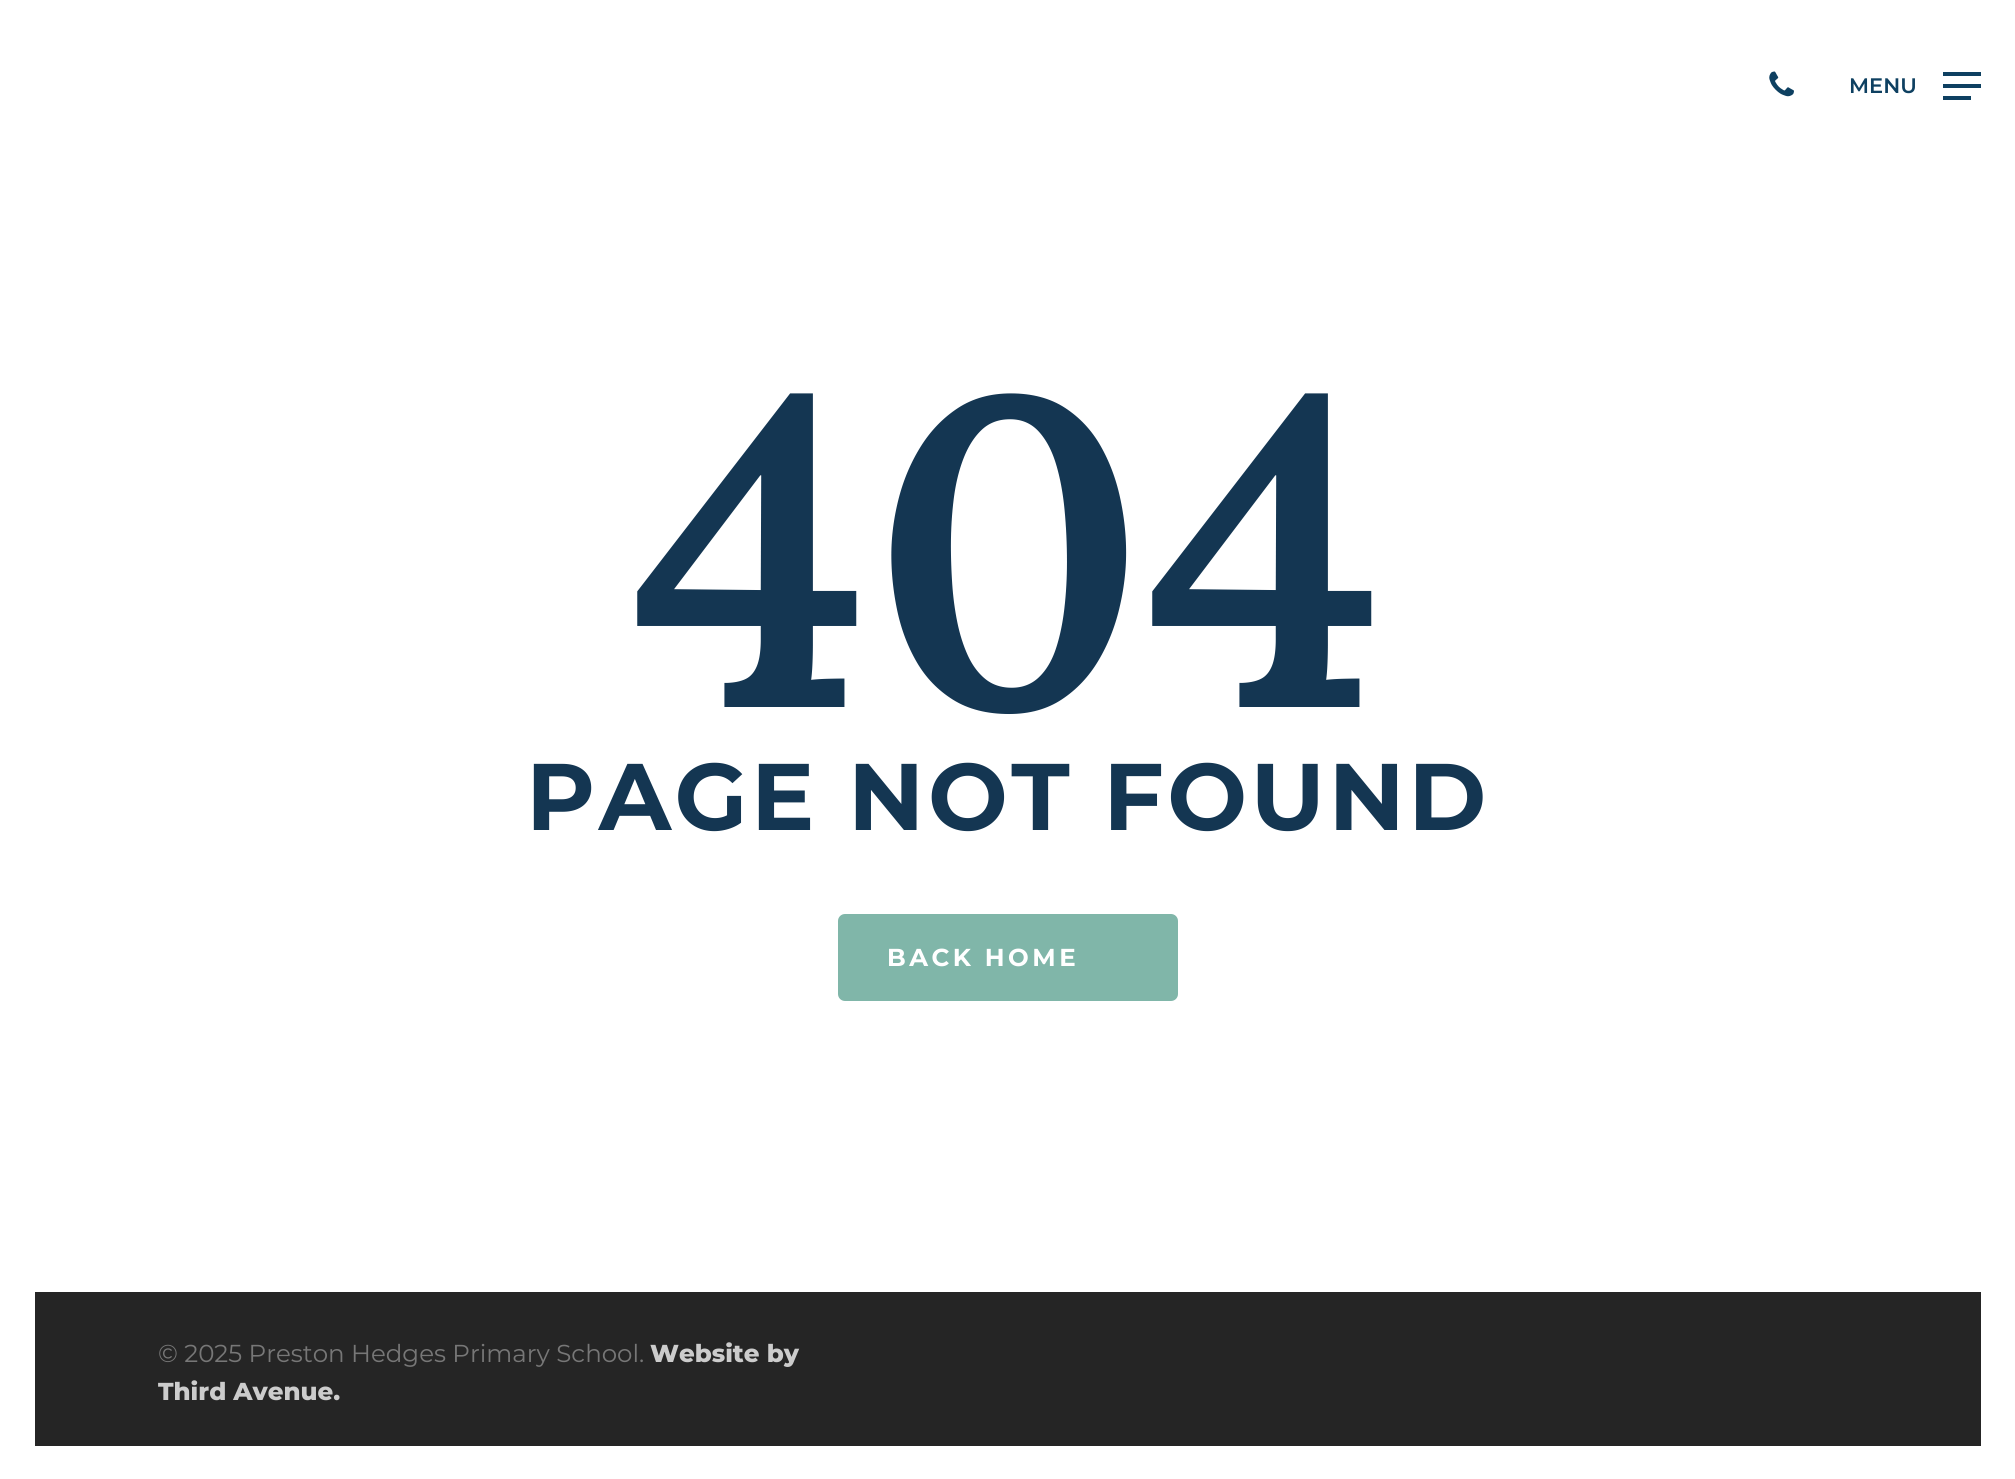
#include <cairo.h>
#include <math.h>
#include <stddef.h>


static void rgb(cairo_t *cr, int r, int g, int b)
{
	cairo_set_source_rgb(cr, r / 255.0, g / 255.0, b / 255.0);
}

static void face(cairo_t *cr, const char *family, double size, int italic, int bold)
{
	cairo_select_font_face(cr, family, italic ? CAIRO_FONT_SLANT_ITALIC : CAIRO_FONT_SLANT_NORMAL,
		bold ? CAIRO_FONT_WEIGHT_BOLD : CAIRO_FONT_WEIGHT_NORMAL);
	cairo_set_font_size(cr, size);
}

static void label(cairo_t *cr, double x, double y, const char *s)
{
	cairo_move_to(cr, x, y);
	cairo_show_text(cr, s);
}

static void tracked(cairo_t *cr, double x, double y, const char *s, double letter, double word)
{
	cairo_move_to(cr, x, y);
	while (*s) {
		char ch[5] = {0};
		int n = 0;
		do ch[n++] = *s++; while ((*s & 0xC0) == 0x80);
		cairo_show_text(cr, ch);
		cairo_rel_move_to(cr, letter + word * (*ch == ' '), 0);
	}
}

static void rect(cairo_t *cr, double x, double y, double w, double h)
{
	cairo_rectangle(cr, x, y, w, h);
	cairo_fill(cr);
}

static void rrect(cairo_t *cr, double x, double y, double w, double h, double r)
{
	cairo_new_sub_path(cr);
	cairo_arc(cr, x + w - r, y + h - r, r, 0, M_PI / 2);
	cairo_arc(cr, x + r, y + h - r, r, M_PI / 2, M_PI);
	cairo_arc(cr, x + r, y + r, r, M_PI, 1.5 * M_PI);
	cairo_arc(cr, x + w - r, y + r, r, 1.5 * M_PI, 2 * M_PI);
	cairo_close_path(cr);
}

static void image(cairo_t *cr, const char *path, double x, double y, double w, double h)
{
	cairo_surface_t *image = cairo_image_surface_create_from_png(path);
	cairo_save(cr);
	cairo_set_source_surface(cr, image, x, y);
	cairo_rectangle(cr, x, y, w, h);
	cairo_fill(cr);
	cairo_restore(cr);
	cairo_surface_destroy(image);
}

static void draw(cairo_t *cr) {
	rgb(cr, 255, 255, 255);
	cairo_paint(cr);
	image(cr, "image0.png", 1769, 71, 25, 26);
	face(cr, "Montserrat SemiBold", 21, 0, 0);
	rgb(cr, 14, 64, 97);
	label(cr, 1849, 93, "MENU");
	rect(cr, 1943, 72, 38, 4);
	rect(cr, 1943, 96, 28, 4);
	rect(cr, 1943, 84, 38, 4);
	face(cr, "Lora SemiBold", 438, 0, 0);
	rgb(cr, 20, 54, 82);
	label(cr, 632, 707, "404");
	face(cr, "Montserrat", 94.5, 0, 1);
	tracked(cr, 526, 830, "PAGE NOT FOUND", 3.5, 0);
	rgb(cr, 128, 182, 169);
	rrect(cr, 838, 914, 340, 87, 7);
	cairo_fill(cr);
	face(cr, "Montserrat", 24.5, 0, 1);
	rgb(cr, 255, 255, 255);
	tracked(cr, 887, 966, "BACK HOME", 3.5, 0);
	rgb(cr, 37, 37, 37);
	rect(cr, 35, 1292, 1946, 154);
	face(cr, "Montserrat", 24.5, 0, 0);
	rgb(cr, 119, 119, 119);
	label(cr, 158, 1362, "© 2025 Preston Hedges Primary School.");
	face(cr, "Montserrat ExtraBold", 24.5, 0, 0);
	rgb(cr, 204, 204, 204);
	label(cr, 650, 1362, "Website by");
	label(cr, 158, 1400, "Third Avenue.");
}

int main(void) {
	cairo_surface_t *surface = cairo_image_surface_create(CAIRO_FORMAT_RGB24, 2015, 1479);
	cairo_t *cr = cairo_create(surface);
	cairo_font_options_t *options = cairo_font_options_create();
	cairo_font_options_set_hint_metrics(options, CAIRO_HINT_METRICS_OFF);
	cairo_font_options_set_hint_style(options, CAIRO_HINT_STYLE_NONE);
	cairo_set_font_options(cr, options);
	cairo_set_miter_limit(cr, 4);
	draw(cr);
	cairo_surface_write_to_png(surface, "render.png");
	cairo_font_options_destroy(options);
	cairo_destroy(cr);
	cairo_surface_destroy(surface);
	return 0;
}
